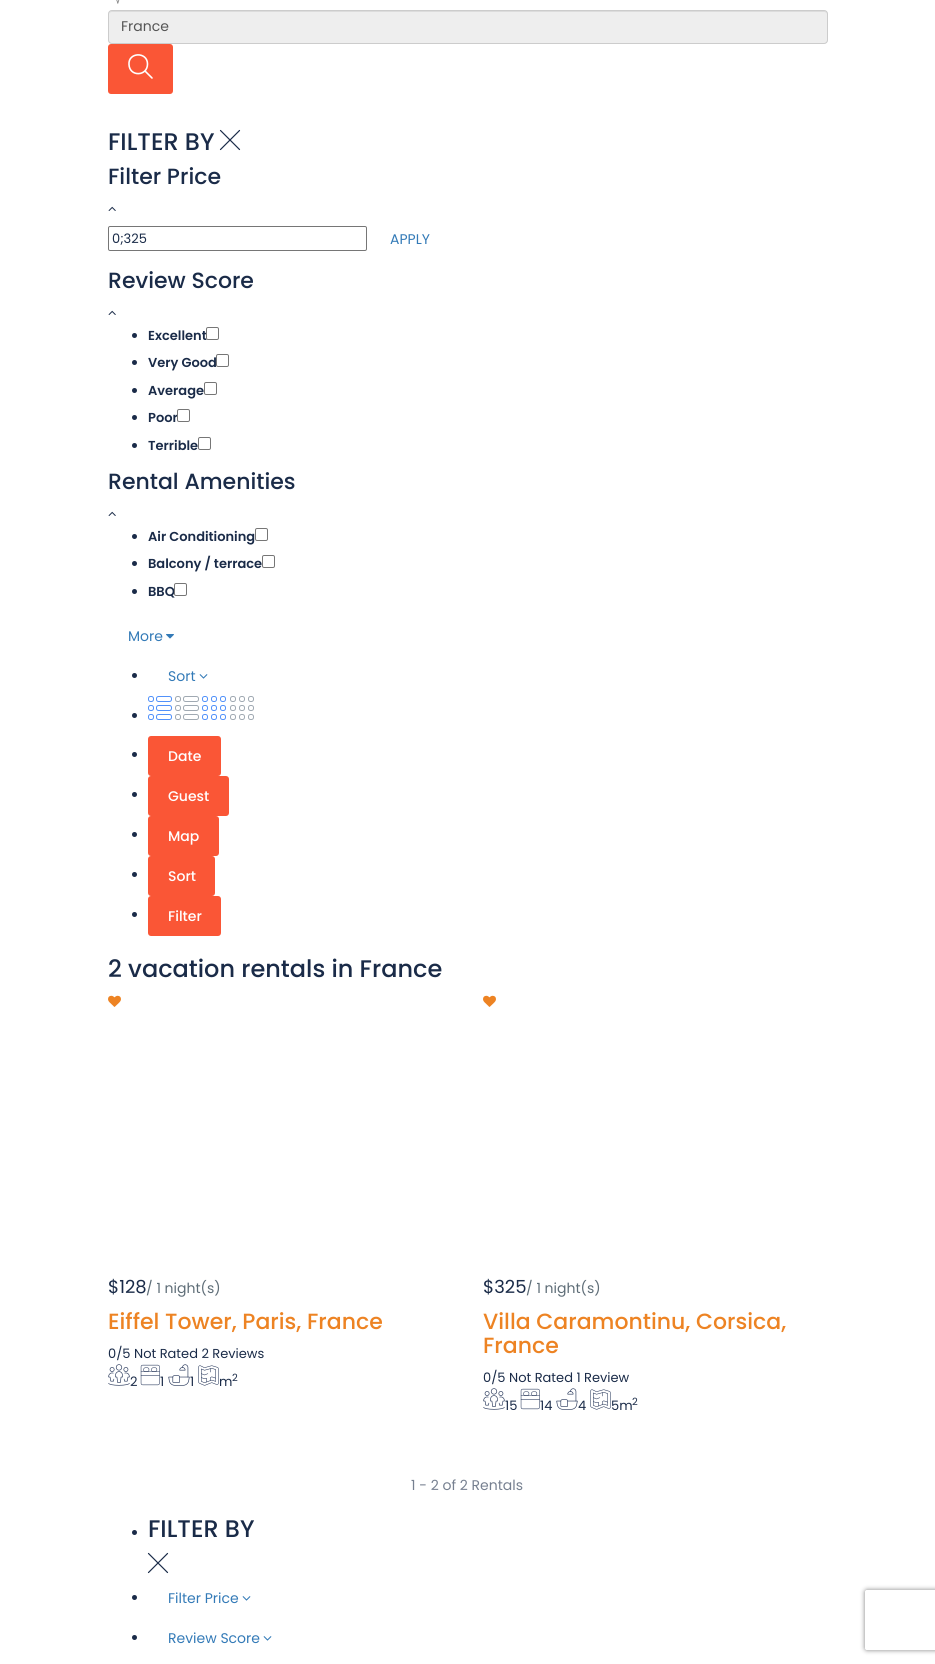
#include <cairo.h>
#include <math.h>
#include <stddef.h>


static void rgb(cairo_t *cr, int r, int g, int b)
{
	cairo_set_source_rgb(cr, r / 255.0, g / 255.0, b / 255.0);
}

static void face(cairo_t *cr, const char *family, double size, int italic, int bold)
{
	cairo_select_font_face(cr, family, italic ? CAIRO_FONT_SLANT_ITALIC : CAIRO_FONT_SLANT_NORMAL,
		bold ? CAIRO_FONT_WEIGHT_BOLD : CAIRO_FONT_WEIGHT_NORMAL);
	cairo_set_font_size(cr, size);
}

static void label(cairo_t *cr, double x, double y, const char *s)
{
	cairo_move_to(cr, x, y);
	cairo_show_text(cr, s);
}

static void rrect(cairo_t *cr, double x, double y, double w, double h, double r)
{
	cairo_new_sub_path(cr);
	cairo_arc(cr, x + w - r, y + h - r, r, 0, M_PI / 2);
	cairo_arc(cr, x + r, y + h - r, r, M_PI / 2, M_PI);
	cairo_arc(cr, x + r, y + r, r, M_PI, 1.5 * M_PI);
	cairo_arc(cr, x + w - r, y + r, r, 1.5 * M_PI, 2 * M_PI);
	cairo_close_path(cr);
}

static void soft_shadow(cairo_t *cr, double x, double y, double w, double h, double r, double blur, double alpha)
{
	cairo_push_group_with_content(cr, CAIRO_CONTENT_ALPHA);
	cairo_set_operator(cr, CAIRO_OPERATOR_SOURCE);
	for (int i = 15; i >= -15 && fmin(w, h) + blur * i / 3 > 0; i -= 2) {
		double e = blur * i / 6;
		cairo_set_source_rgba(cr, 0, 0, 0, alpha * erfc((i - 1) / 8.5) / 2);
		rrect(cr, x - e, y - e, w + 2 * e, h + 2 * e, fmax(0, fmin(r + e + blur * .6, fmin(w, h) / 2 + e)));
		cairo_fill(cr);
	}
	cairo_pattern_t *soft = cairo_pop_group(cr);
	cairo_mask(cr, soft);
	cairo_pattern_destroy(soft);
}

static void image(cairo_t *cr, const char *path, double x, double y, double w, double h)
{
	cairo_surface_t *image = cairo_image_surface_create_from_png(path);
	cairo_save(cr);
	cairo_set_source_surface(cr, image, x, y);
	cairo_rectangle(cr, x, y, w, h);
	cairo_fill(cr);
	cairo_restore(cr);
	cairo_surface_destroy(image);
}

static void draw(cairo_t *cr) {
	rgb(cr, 255, 255, 255);
	cairo_paint(cr);
	image(cr, "image0.png", 116, 0, 4, 4);
	rgb(cr, 238, 238, 238);
	rrect(cr, 108, 10, 720, 34, 4);
	cairo_fill(cr);
	rgb(cr, 220, 220, 220);
	cairo_new_path(cr);
	cairo_move_to(cr, 112, 12);
	cairo_line_to(cr, 824, 12);
	cairo_curve_to(cr, 826, 12, 827, 13, 827, 15);
	cairo_curve_to(cr, 827, 13, 826, 11, 824, 11);
	cairo_line_to(cr, 112, 11);
	cairo_curve_to(cr, 110, 11, 109, 13, 109, 15);
	cairo_curve_to(cr, 109, 13, 110, 12, 112, 12);
	cairo_close_path(cr);
	cairo_fill(cr);
	rrect(cr, 108.5, 10.5, 719, 33, 3.5);
	rgb(cr, 204, 204, 204);
	cairo_set_line_width(cr, 1);
	cairo_stroke(cr);
	face(cr, "Poppins", 14, 0, 0);
	rgb(cr, 85, 85, 85);
	label(cr, 121, 31, "France");
	rgb(cr, 250, 86, 54);
	rrect(cr, 108, 44, 65, 50, 3);
	cairo_fill(cr);
	cairo_new_path(cr);
	cairo_move_to(cr, 147.5, 64);
	cairo_curve_to(cr, 147.5, 76.5, 129.5, 77, 129, 64.5);
	cairo_curve_to(cr, 128, 52, 147.5, 51.5, 147.5, 64);
	cairo_close_path(cr);
	cairo_move_to(cr, 145, 71);
	cairo_line_to(cr, 152, 78);
	rgb(cr, 255, 255, 255);
	cairo_set_line_width(cr, 1.6);
	cairo_set_line_cap(cr, CAIRO_LINE_CAP_ROUND);
	cairo_set_line_join(cr, CAIRO_LINE_JOIN_ROUND);
	cairo_stroke(cr);
	face(cr, "Poppins Medium", 24, 0, 0);
	rgb(cr, 26, 43, 72);
	label(cr, 108, 150, "FILTER BY");
	cairo_new_path(cr);
	cairo_move_to(cr, 220.5, 149.5);
	cairo_line_to(cr, 239.5, 130.5);
	cairo_move_to(cr, 239.5, 149.5);
	cairo_line_to(cr, 220.5, 130.5);
	cairo_set_line_width(cr, 1.2);
	cairo_stroke(cr);
	face(cr, "Poppins Medium", 22, 0, 0);
	label(cr, 108, 184, "Filter Price");
	image(cr, "image1.png", 108, 206, 8, 5);
	rrect(cr, 108.5, 226.5, 258, 24, 1.5);
	rgb(cr, 118, 118, 118);
	cairo_set_line_width(cr, 1);
	cairo_set_line_cap(cr, CAIRO_LINE_CAP_BUTT);
	cairo_set_line_join(cr, CAIRO_LINE_JOIN_MITER);
	cairo_stroke(cr);
	face(cr, "Poppins", 13, 0, 0);
	rgb(cr, 26, 43, 72);
	label(cr, 112, 243, "0;325");
	face(cr, "Poppins", 14, 0, 0);
	rgb(cr, 51, 122, 183);
	label(cr, 390, 244, "APPLY");
	face(cr, "Poppins Medium", 22, 0, 0);
	rgb(cr, 26, 43, 72);
	label(cr, 108, 288, "Review Score");
	image(cr, "image1.png", 108, 310, 8, 5);
	cairo_arc(cr, 134.5, 335.5, 2.5, 0, 2 * M_PI);
	cairo_fill(cr);
	face(cr, "Poppins SemiBold", 13, 0, 0);
	label(cr, 148, 340, "Excellent");
	rrect(cr, 206.5, 327.5, 12, 12, 1.5);
	rgb(cr, 118, 118, 118);
	cairo_stroke(cr);
	rgb(cr, 26, 43, 72);
	cairo_arc(cr, 134.5, 362.5, 2.5, 0, 2 * M_PI);
	cairo_fill(cr);
	label(cr, 148, 367, "Very Good");
	rrect(cr, 216.5, 354.5, 12, 12, 1.5);
	rgb(cr, 118, 118, 118);
	cairo_stroke(cr);
	rgb(cr, 26, 43, 72);
	cairo_arc(cr, 134.5, 390.5, 2.5, 0, 2 * M_PI);
	cairo_fill(cr);
	label(cr, 148, 395, "Average");
	rrect(cr, 204.5, 382.5, 12, 12, 1.5);
	rgb(cr, 118, 118, 118);
	cairo_stroke(cr);
	rgb(cr, 26, 43, 72);
	cairo_arc(cr, 134.5, 417.5, 2.5, 0, 2 * M_PI);
	cairo_fill(cr);
	label(cr, 148, 422, "Poor");
	rrect(cr, 177.5, 409.5, 12, 12, 1.5);
	rgb(cr, 118, 118, 118);
	cairo_stroke(cr);
	rgb(cr, 26, 43, 72);
	cairo_arc(cr, 134.5, 445.5, 2.5, 0, 2 * M_PI);
	cairo_fill(cr);
	label(cr, 148, 450, "Terrible");
	rrect(cr, 198.5, 437.5, 12, 12, 1.5);
	rgb(cr, 118, 118, 118);
	cairo_stroke(cr);
	face(cr, "Poppins Medium", 22, 0, 0);
	rgb(cr, 26, 43, 72);
	label(cr, 108, 489, "Rental Amenities");
	image(cr, "image1.png", 108, 511, 8, 5);
	cairo_arc(cr, 134.5, 536.5, 2.5, 0, 2 * M_PI);
	cairo_fill(cr);
	face(cr, "Poppins SemiBold", 13, 0, 0);
	label(cr, 148, 541, "Air Conditioning");
	rrect(cr, 255.5, 528.5, 12, 12, 1.5);
	rgb(cr, 118, 118, 118);
	cairo_stroke(cr);
	rgb(cr, 26, 43, 72);
	cairo_arc(cr, 134.5, 563.5, 2.5, 0, 2 * M_PI);
	cairo_fill(cr);
	label(cr, 148, 568, "Balcony / terrace");
	rrect(cr, 262.5, 555.5, 12, 12, 1.5);
	rgb(cr, 118, 118, 118);
	cairo_stroke(cr);
	rgb(cr, 26, 43, 72);
	cairo_arc(cr, 134.5, 591.5, 2.5, 0, 2 * M_PI);
	cairo_fill(cr);
	label(cr, 148, 596, "BBQ");
	rrect(cr, 174.5, 583.5, 12, 12, 1.5);
	rgb(cr, 118, 118, 118);
	cairo_stroke(cr);
	face(cr, "Poppins", 14, 0, 0);
	rgb(cr, 51, 122, 183);
	label(cr, 128, 641, "More");
	image(cr, "image2.png", 166, 634, 8, 5);
	rgb(cr, 26, 43, 72);
	cairo_arc(cr, 134.5, 675.5, 2.5, 0, 2 * M_PI);
	cairo_fill(cr);
	rgb(cr, 51, 122, 183);
	label(cr, 168, 681, "Sort");
	image(cr, "image3.png", 199, 674, 9, 5);
	rgb(cr, 26, 43, 72);
	cairo_arc(cr, 134.5, 715.5, 2.5, 0, 2 * M_PI);
	cairo_fill(cr);
	image(cr, "image4.png", 148, 696, 24, 24);
	image(cr, "image5.png", 175, 696, 24, 24);
	image(cr, "image6.png", 202, 696, 24, 24);
	image(cr, "image7.png", 230, 696, 24, 24);
	cairo_arc(cr, 134.5, 754.5, 2.5, 0, 2 * M_PI);
	cairo_fill(cr);
	rgb(cr, 250, 86, 54);
	rrect(cr, 148, 736, 73, 40, 3);
	cairo_fill(cr);
	face(cr, "Poppins Medium", 14, 0, 0);
	rgb(cr, 255, 255, 255);
	label(cr, 168, 761, "Date");
	rgb(cr, 26, 43, 72);
	cairo_new_path(cr);
	cairo_arc(cr, 134.5, 794.5, 2.5, 0, 2 * M_PI);
	cairo_fill(cr);
	rgb(cr, 250, 86, 54);
	rrect(cr, 148, 776, 81, 40, 3);
	cairo_fill(cr);
	rgb(cr, 255, 255, 255);
	label(cr, 168, 801, "Guest");
	rgb(cr, 26, 43, 72);
	cairo_new_path(cr);
	cairo_arc(cr, 134.5, 834.5, 2.5, 0, 2 * M_PI);
	cairo_fill(cr);
	rgb(cr, 250, 86, 54);
	rrect(cr, 148, 816, 71, 40, 3);
	cairo_fill(cr);
	rgb(cr, 255, 255, 255);
	label(cr, 168, 841, "Map");
	rgb(cr, 26, 43, 72);
	cairo_new_path(cr);
	cairo_arc(cr, 134.5, 874.5, 2.5, 0, 2 * M_PI);
	cairo_fill(cr);
	rgb(cr, 250, 86, 54);
	rrect(cr, 148, 856, 67, 40, 3);
	cairo_fill(cr);
	rgb(cr, 255, 255, 255);
	label(cr, 168, 881, "Sort");
	rgb(cr, 26, 43, 72);
	cairo_new_path(cr);
	cairo_arc(cr, 134.5, 914.5, 2.5, 0, 2 * M_PI);
	cairo_fill(cr);
	rgb(cr, 250, 86, 54);
	rrect(cr, 148, 896, 73, 40, 3);
	cairo_fill(cr);
	rgb(cr, 255, 255, 255);
	label(cr, 168, 921, "Filter");
	face(cr, "Poppins Medium", 24, 0, 0);
	rgb(cr, 26, 43, 72);
	label(cr, 108, 977, "2 vacation rentals in France");
	image(cr, "image8.png", 108, 995, 13, 12);
	face(cr, "Poppins", 18, 0, 0);
	label(cr, 108, 1293, "$128");
	face(cr, "Poppins", 14, 0, 0);
	rgb(cr, 94, 109, 119);
	label(cr, 146, 1293, "/ 1 night(s)");
	face(cr, "Poppins Medium", 22, 0, 0);
	rgb(cr, 237, 131, 35);
	label(cr, 108, 1329, "Eiffel Tower, Paris, France");
	face(cr, "Poppins", 13, 0, 0);
	rgb(cr, 26, 43, 72);
	label(cr, 108, 1358, "0/5 Not Rated 2 Reviews");
	image(cr, "image9.png", 108, 1364, 22, 22);
	label(cr, 130, 1386, "2");
	image(cr, "image10.png", 140, 1364, 20, 22);
	label(cr, 160, 1386, "1");
	image(cr, "image11.png", 168, 1364, 22, 22);
	label(cr, 190, 1386, "1");
	image(cr, "image12.png", 198, 1365, 21, 21);
	face(cr, "Poppins", 10, 0, 0);
	label(cr, 232, 1381, "2");
	face(cr, "Poppins", 13, 0, 0);
	label(cr, 219, 1386, "m");
	image(cr, "image8.png", 483, 995, 13, 12);
	face(cr, "Poppins", 18, 0, 0);
	label(cr, 483, 1293, "$325");
	face(cr, "Poppins", 14, 0, 0);
	rgb(cr, 94, 109, 119);
	label(cr, 526, 1293, "/ 1 night(s)");
	face(cr, "Poppins Medium", 22, 0, 0);
	rgb(cr, 237, 131, 35);
	label(cr, 483, 1329, "Villa Caramontinu, Corsica,");
	label(cr, 483, 1353, "France");
	face(cr, "Poppins", 13, 0, 0);
	rgb(cr, 26, 43, 72);
	label(cr, 483, 1382, "0/5 Not Rated 1 Review");
	label(cr, 505, 1410, "15");
	image(cr, "image13.png", 483, 1388, 22, 22);
	image(cr, "image10.png", 520, 1388, 20, 22);
	label(cr, 540, 1410, "14");
	image(cr, "image11.png", 556, 1388, 22, 22);
	label(cr, 578, 1410, "4");
	image(cr, "image12.png", 590, 1389, 21, 21);
	label(cr, 611, 1410, "5m");
	face(cr, "Poppins", 10, 0, 0);
	label(cr, 632, 1405, "2");
	face(cr, "Poppins", 14, 0, 0);
	rgb(cr, 118, 128, 144);
	label(cr, 411, 1490, "1 - 2 of 2 Rentals");
	rgb(cr, 26, 43, 72);
	cairo_new_path(cr);
	cairo_arc(cr, 134.5, 1532.5, 2.5, 0, 2 * M_PI);
	cairo_fill(cr);
	face(cr, "Poppins Medium", 24, 0, 0);
	label(cr, 148, 1537, "FILTER BY");
	cairo_new_path(cr);
	cairo_move_to(cr, 148.5, 1572.5);
	cairo_line_to(cr, 167.5, 1553.5);
	cairo_move_to(cr, 167.5, 1572.5);
	cairo_line_to(cr, 148.5, 1553.5);
	cairo_set_line_width(cr, 1.2);
	cairo_set_line_cap(cr, CAIRO_LINE_CAP_ROUND);
	cairo_set_line_join(cr, CAIRO_LINE_JOIN_ROUND);
	cairo_stroke(cr);
	cairo_arc(cr, 134.5, 1597.5, 2.5, 0, 2 * M_PI);
	cairo_fill(cr);
	face(cr, "Poppins", 14, 0, 0);
	rgb(cr, 51, 122, 183);
	label(cr, 168, 1603, "Filter Price");
	image(cr, "image3.png", 242, 1596, 9, 5);
	rgb(cr, 26, 43, 72);
	cairo_arc(cr, 134.5, 1637.5, 2.5, 0, 2 * M_PI);
	cairo_fill(cr);
	rgb(cr, 51, 122, 183);
	label(cr, 168, 1643, "Review Score");
	image(cr, "image3.png", 263, 1636, 9, 5);
	cairo_save(cr);
	cairo_set_fill_rule(cr, CAIRO_FILL_RULE_EVEN_ODD);
	cairo_new_path(cr);
	cairo_move_to(cr, 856, 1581);
	cairo_line_to(cr, 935, 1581);
	cairo_line_to(cr, 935, 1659);
	cairo_line_to(cr, 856, 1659);
	cairo_close_path(cr);
	cairo_move_to(cr, 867, 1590);
	cairo_line_to(cr, 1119, 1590);
	cairo_curve_to(cr, 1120, 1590, 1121, 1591, 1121, 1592);
	cairo_line_to(cr, 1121, 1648);
	cairo_curve_to(cr, 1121, 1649, 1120, 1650, 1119, 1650);
	cairo_line_to(cr, 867, 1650);
	cairo_curve_to(cr, 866, 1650, 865, 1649, 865, 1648);
	cairo_line_to(cr, 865, 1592);
	cairo_curve_to(cr, 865, 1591, 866, 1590, 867, 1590);
	cairo_close_path(cr);
	cairo_clip(cr);
	rgb(cr, 128, 128, 128);
	soft_shadow(cr, 865, 1590, 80, 60, 2, 2.5, 1);
	cairo_restore(cr);
}

int main(void) {
	cairo_surface_t *surface = cairo_image_surface_create(CAIRO_FORMAT_RGB24, 935, 1664);
	cairo_t *cr = cairo_create(surface);
	cairo_font_options_t *options = cairo_font_options_create();
	cairo_font_options_set_hint_metrics(options, CAIRO_HINT_METRICS_OFF);
	cairo_font_options_set_hint_style(options, CAIRO_HINT_STYLE_NONE);
	cairo_set_font_options(cr, options);
	cairo_set_miter_limit(cr, 4);
	draw(cr);
	cairo_surface_write_to_png(surface, "render.png");
	cairo_font_options_destroy(options);
	cairo_destroy(cr);
	cairo_surface_destroy(surface);
	return 0;
}
